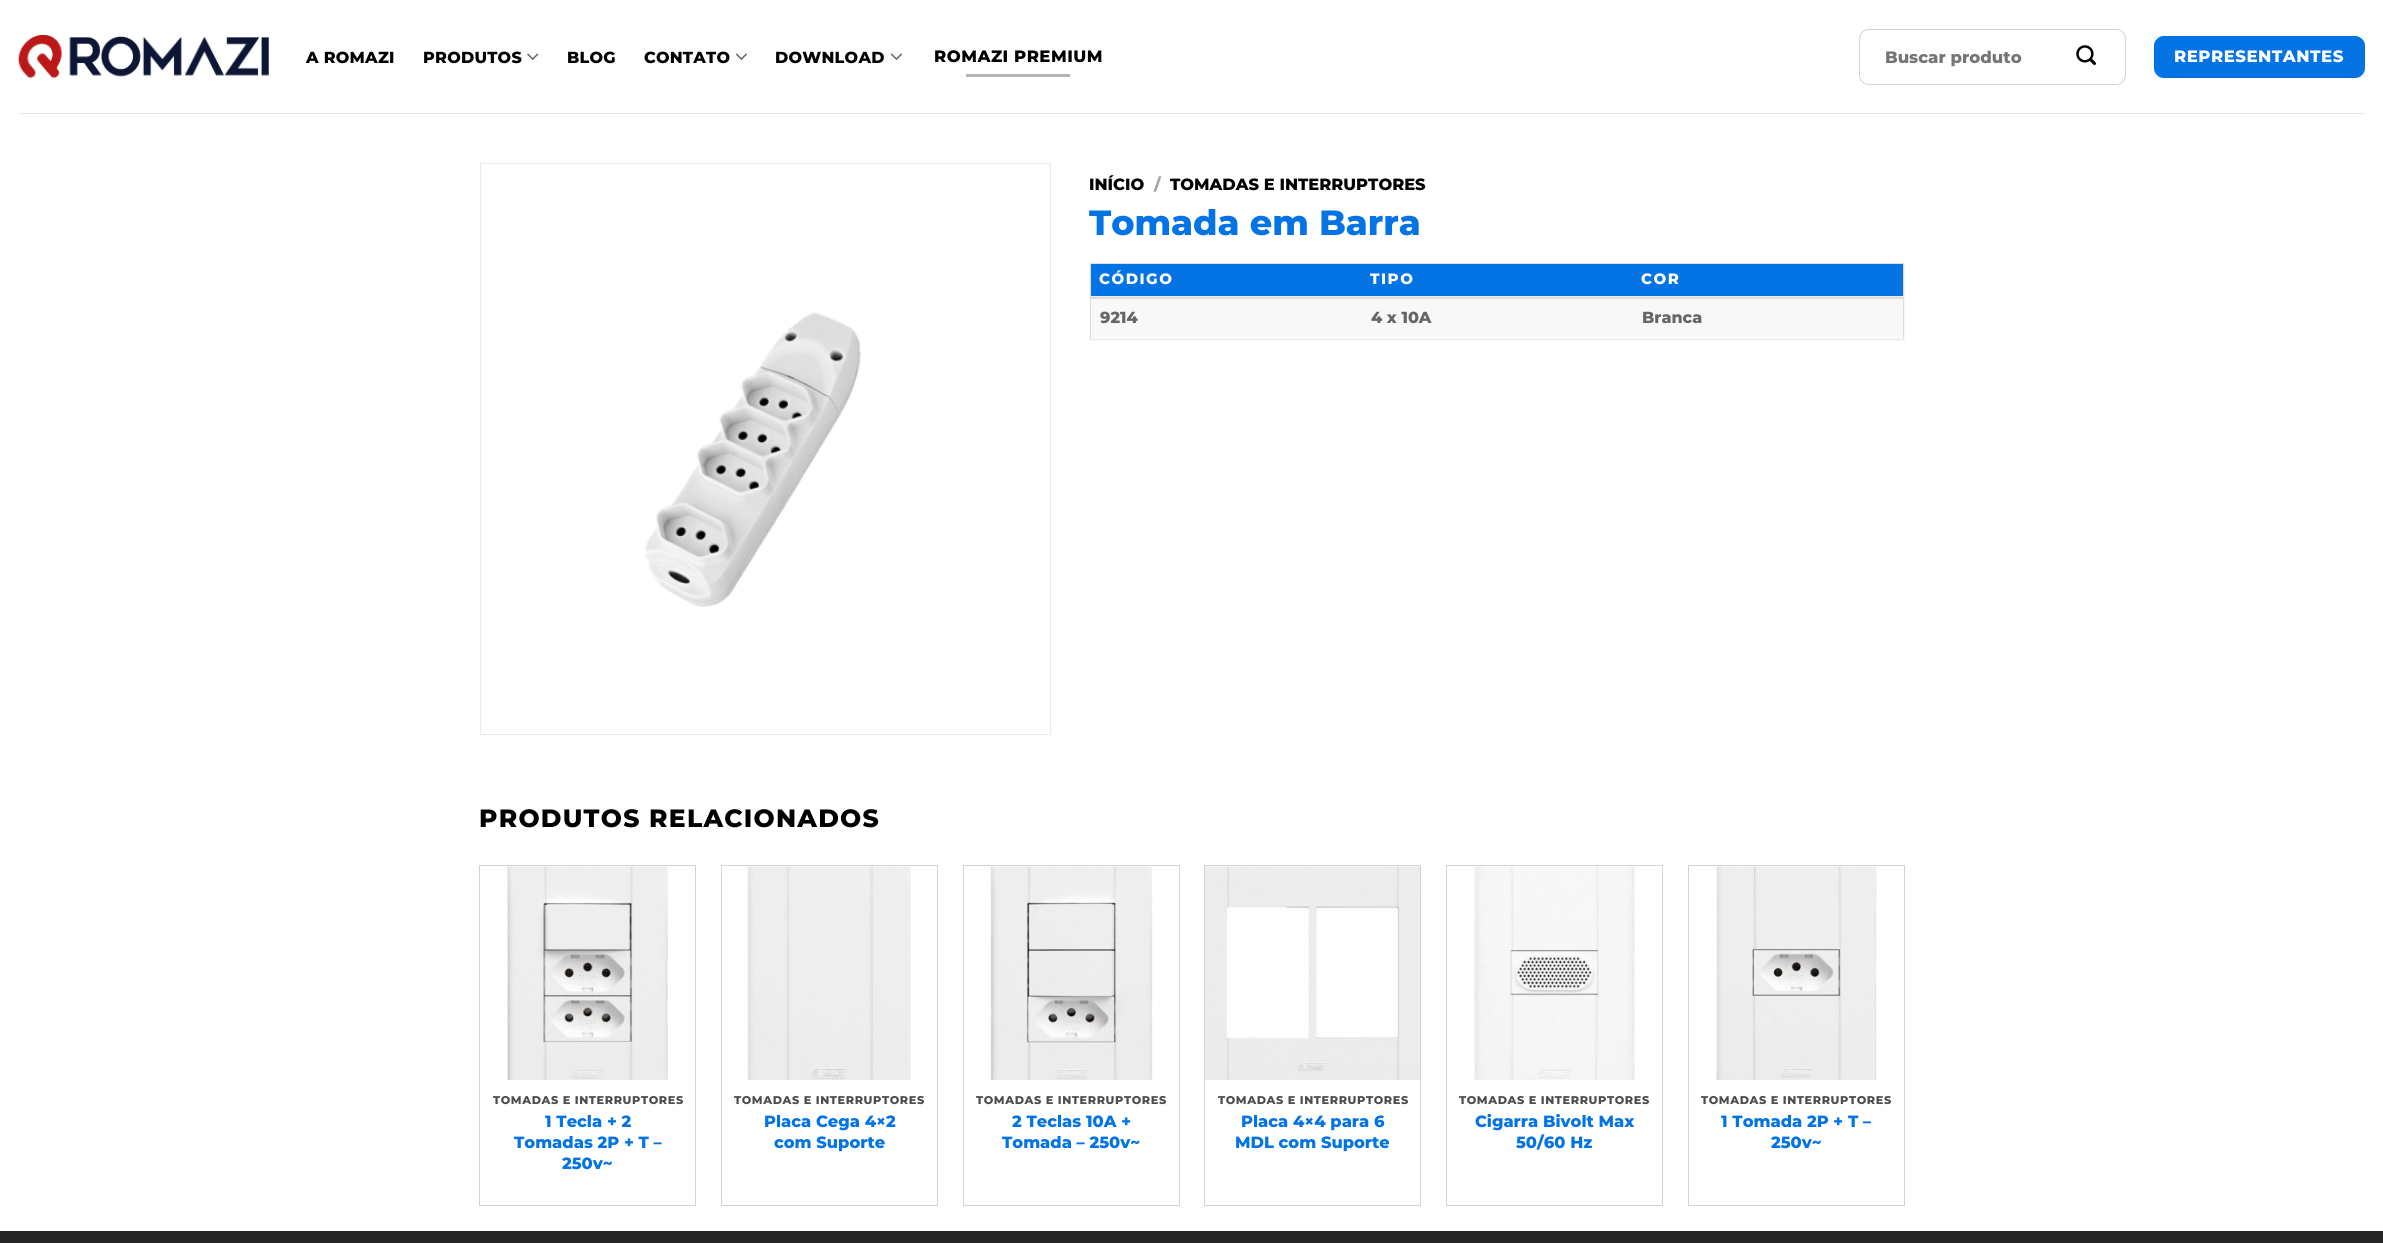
#include <cairo.h>
#include <math.h>
#include <stddef.h>


static void rgb(cairo_t *cr, int r, int g, int b)
{
	cairo_set_source_rgb(cr, r / 255.0, g / 255.0, b / 255.0);
}

static void face(cairo_t *cr, const char *family, double size, int italic, int bold)
{
	cairo_select_font_face(cr, family, italic ? CAIRO_FONT_SLANT_ITALIC : CAIRO_FONT_SLANT_NORMAL,
		bold ? CAIRO_FONT_WEIGHT_BOLD : CAIRO_FONT_WEIGHT_NORMAL);
	cairo_set_font_size(cr, size);
}

static void label(cairo_t *cr, double x, double y, const char *s)
{
	cairo_move_to(cr, x, y);
	cairo_show_text(cr, s);
}

static void tracked(cairo_t *cr, double x, double y, const char *s, double letter, double word)
{
	cairo_move_to(cr, x, y);
	while (*s) {
		char ch[5] = {0};
		int n = 0;
		do ch[n++] = *s++; while ((*s & 0xC0) == 0x80);
		cairo_show_text(cr, ch);
		cairo_rel_move_to(cr, letter + word * (*ch == ' '), 0);
	}
}

static void rect(cairo_t *cr, double x, double y, double w, double h)
{
	cairo_rectangle(cr, x, y, w, h);
	cairo_fill(cr);
}

static void rrect(cairo_t *cr, double x, double y, double w, double h, double r)
{
	cairo_new_sub_path(cr);
	cairo_arc(cr, x + w - r, y + h - r, r, 0, M_PI / 2);
	cairo_arc(cr, x + r, y + h - r, r, M_PI / 2, M_PI);
	cairo_arc(cr, x + r, y + r, r, M_PI, 1.5 * M_PI);
	cairo_arc(cr, x + w - r, y + r, r, 1.5 * M_PI, 2 * M_PI);
	cairo_close_path(cr);
}

static void image(cairo_t *cr, const char *path, double x, double y, double w, double h)
{
	cairo_surface_t *image = cairo_image_surface_create_from_png(path);
	cairo_save(cr);
	cairo_set_source_surface(cr, image, x, y);
	cairo_rectangle(cr, x, y, w, h);
	cairo_fill(cr);
	cairo_restore(cr);
	cairo_surface_destroy(image);
}

static void draw(cairo_t *cr) {
	rgb(cr, 255, 255, 255);
	cairo_paint(cr);
	image(cr, "image0.png", 18, 35, 251, 43);
	face(cr, "Montserrat ExtraBold", 16, 0, 0);
	rgb(cr, 0, 0, 0);
	tracked(cr, 306, 63, "A ROMAZI", 0.25, 0);
	tracked(cr, 423, 63, "PRODUTOS", 0.25, 0);
	image(cr, "image1.png", 527, 53, 12, 7);
	tracked(cr, 567, 63, "BLOG", 0.25, 0);
	tracked(cr, 644, 63, "CONTATO", 0.25, 0);
	image(cr, "image2.png", 735, 53, 12, 7);
	tracked(cr, 775, 63, "DOWNLOAD", 0.25, 0);
	image(cr, "image2.png", 890, 53, 12, 7);
	face(cr, "Montserrat ExtraBold", 16.5, 0, 0);
	tracked(cr, 934, 62, "ROMAZI PREMIUM", 0.5, 0);
	rgb(cr, 179, 179, 179);
	rect(cr, 966, 74, 104, 3);
	rrect(cr, 1859.5, 29.5, 266, 55, 9.5);
	rgb(cr, 211, 211, 211);
	cairo_set_line_width(cr, 1);
	cairo_stroke(cr);
	rgb(cr, 117, 117, 117);
	label(cr, 1885, 63, "Buscar produto");
	image(cr, "image3.png", 2076, 45, 20, 20);
	rgb(cr, 4, 115, 227);
	rrect(cr, 2154, 36, 211, 42, 10);
	cairo_fill(cr);
	cairo_rectangle(cr, 2154.5, 36.5, 210, 41);
	cairo_set_source_rgba(cr, 0, 0, 0, 0.05);
	cairo_stroke(cr);
	rgb(cr, 255, 255, 255);
	tracked(cr, 2174, 62, "REPRESENTANTES", 0.5, 0);
	rgb(cr, 230, 230, 230);
	rect(cr, 19, 113, 2346, 1);
	cairo_rectangle(cr, 480.5, 163.5, 570, 571);
	rgb(cr, 233, 233, 233);
	cairo_stroke(cr);
	image(cr, "image4.png", 645, 312, 216, 295);
	face(cr, "Montserrat ExtraBold", 16.25, 0, 0);
	rgb(cr, 0, 0, 0);
	label(cr, 1089, 190, "INÍCIO");
	rgb(cr, 166, 166, 166);
	label(cr, 1154, 190, "/");
	rgb(cr, 0, 0, 0);
	label(cr, 1170, 190, "TOMADAS E INTERRUPTORES");
	face(cr, "Montserrat ExtraBold", 35, 0, 0);
	rgb(cr, 4, 115, 227);
	label(cr, 1089, 235, "Tomada em Barra");
	cairo_rectangle(cr, 1089.5, 261.5, 815, 79);
	rgb(cr, 248, 248, 248);
	cairo_stroke(cr);
	rgb(cr, 4, 115, 227);
	rect(cr, 1091, 264, 812, 32);
	cairo_rectangle(cr, 1090.5, 263.5, 813, 34);
	rgb(cr, 221, 221, 221);
	cairo_stroke(cr);
	rgb(cr, 236, 236, 236);
	rect(cr, 1090, 296, 814, 1);
	face(cr, "Montserrat ExtraBold", 15, 0, 0);
	rgb(cr, 255, 255, 255);
	tracked(cr, 1099, 284, "CÓDIGO", 1.5, 0);
	tracked(cr, 1370, 284, "TIPO", 1.5, 0);
	tracked(cr, 1641, 284, "COR", 1.5, 0);
	rgb(cr, 248, 248, 248);
	cairo_rectangle(cr, 1090.5, 298.5, 813, 41);
	cairo_fill_preserve(cr);
	rgb(cr, 221, 221, 221);
	cairo_stroke(cr);
	rgb(cr, 236, 236, 236);
	rect(cr, 1090, 339, 814, 1);
	face(cr, "Montserrat ExtraBold", 16, 0, 0);
	rgb(cr, 102, 102, 102);
	label(cr, 1100, 323, "9214");
	label(cr, 1371, 323, "4 x 10A");
	label(cr, 1642, 323, "Branca");
	face(cr, "Montserrat ExtraBold", 25, 0, 0);
	rgb(cr, 0, 0, 0);
	tracked(cr, 479, 827, "PRODUTOS RELACIONADOS", 1.25, 0);
	cairo_rectangle(cr, 479.5, 865.5, 216, 340);
	rgb(cr, 211, 211, 211);
	cairo_stroke(cr);
	image(cr, "image5.png", 507, 866, 161, 214);
	face(cr, "Montserrat ExtraBold", 11.25, 0, 0);
	rgb(cr, 77, 77, 77);
	tracked(cr, 493, 1104, "TOMADAS E INTERRUPTORES", 0.6, 0);
	face(cr, "Montserrat ExtraBold", 16.25, 0, 0);
	rgb(cr, 4, 115, 227);
	label(cr, 545, 1127, "1 Tecla + 2");
	label(cr, 514, 1148, "Tomadas 2P + T –");
	label(cr, 562, 1169, "250v~");
	cairo_rectangle(cr, 721.5, 865.5, 216, 340);
	rgb(cr, 211, 211, 211);
	cairo_stroke(cr);
	image(cr, "image6.png", 747, 866, 164, 214);
	face(cr, "Montserrat ExtraBold", 11.25, 0, 0);
	rgb(cr, 77, 77, 77);
	tracked(cr, 734, 1104, "TOMADAS E INTERRUPTORES", 0.6, 0);
	face(cr, "Montserrat ExtraBold", 16.25, 0, 0);
	rgb(cr, 4, 115, 227);
	label(cr, 764, 1127, "Placa Cega 4×2");
	label(cr, 774, 1148, "com Suporte");
	cairo_rectangle(cr, 963.5, 865.5, 216, 340);
	rgb(cr, 211, 211, 211);
	cairo_stroke(cr);
	image(cr, "image7.png", 990, 866, 163, 214);
	face(cr, "Montserrat ExtraBold", 11.25, 0, 0);
	rgb(cr, 77, 77, 77);
	tracked(cr, 976, 1104, "TOMADAS E INTERRUPTORES", 0.6, 0);
	face(cr, "Montserrat ExtraBold", 16.25, 0, 0);
	rgb(cr, 4, 115, 227);
	label(cr, 1012, 1127, "2 Teclas 10A +");
	label(cr, 1002, 1148, "Tomada – 250v~");
	cairo_rectangle(cr, 1204.5, 865.5, 216, 340);
	rgb(cr, 211, 211, 211);
	cairo_stroke(cr);
	image(cr, "image8.png", 1205, 866, 215, 214);
	face(cr, "Montserrat ExtraBold", 11.25, 0, 0);
	rgb(cr, 77, 77, 77);
	tracked(cr, 1218, 1104, "TOMADAS E INTERRUPTORES", 0.6, 0);
	face(cr, "Montserrat ExtraBold", 16.25, 0, 0);
	rgb(cr, 4, 115, 227);
	label(cr, 1241, 1127, "Placa 4×4 para 6");
	label(cr, 1235, 1148, "MDL com Suporte");
	cairo_rectangle(cr, 1446.5, 865.5, 216, 340);
	rgb(cr, 211, 211, 211);
	cairo_stroke(cr);
	image(cr, "image9.png", 1474, 866, 161, 214);
	face(cr, "Montserrat ExtraBold", 11.25, 0, 0);
	rgb(cr, 77, 77, 77);
	tracked(cr, 1459, 1104, "TOMADAS E INTERRUPTORES", 0.6, 0);
	face(cr, "Montserrat ExtraBold", 16.25, 0, 0);
	rgb(cr, 4, 115, 227);
	label(cr, 1475, 1127, "Cigarra Bivolt Max");
	label(cr, 1516, 1148, "50/60 Hz");
	cairo_rectangle(cr, 1688.5, 865.5, 216, 340);
	rgb(cr, 211, 211, 211);
	cairo_stroke(cr);
	image(cr, "image10.png", 1716, 866, 161, 214);
	face(cr, "Montserrat ExtraBold", 11.25, 0, 0);
	rgb(cr, 77, 77, 77);
	tracked(cr, 1701, 1104, "TOMADAS E INTERRUPTORES", 0.6, 0);
	face(cr, "Montserrat ExtraBold", 16.25, 0, 0);
	rgb(cr, 4, 115, 227);
	label(cr, 1721, 1127, "1 Tomada 2P + T –");
	label(cr, 1771, 1148, "250v~");
	rgb(cr, 38, 38, 38);
	rect(cr, 0, 1231, 2383, 12);
}

int main(void) {
	cairo_surface_t *surface = cairo_image_surface_create(CAIRO_FORMAT_RGB24, 2383, 1243);
	cairo_t *cr = cairo_create(surface);
	cairo_font_options_t *options = cairo_font_options_create();
	cairo_font_options_set_hint_metrics(options, CAIRO_HINT_METRICS_OFF);
	cairo_font_options_set_hint_style(options, CAIRO_HINT_STYLE_NONE);
	cairo_set_font_options(cr, options);
	cairo_set_miter_limit(cr, 4);
	draw(cr);
	cairo_surface_write_to_png(surface, "render.png");
	cairo_font_options_destroy(options);
	cairo_destroy(cr);
	cairo_surface_destroy(surface);
	return 0;
}
